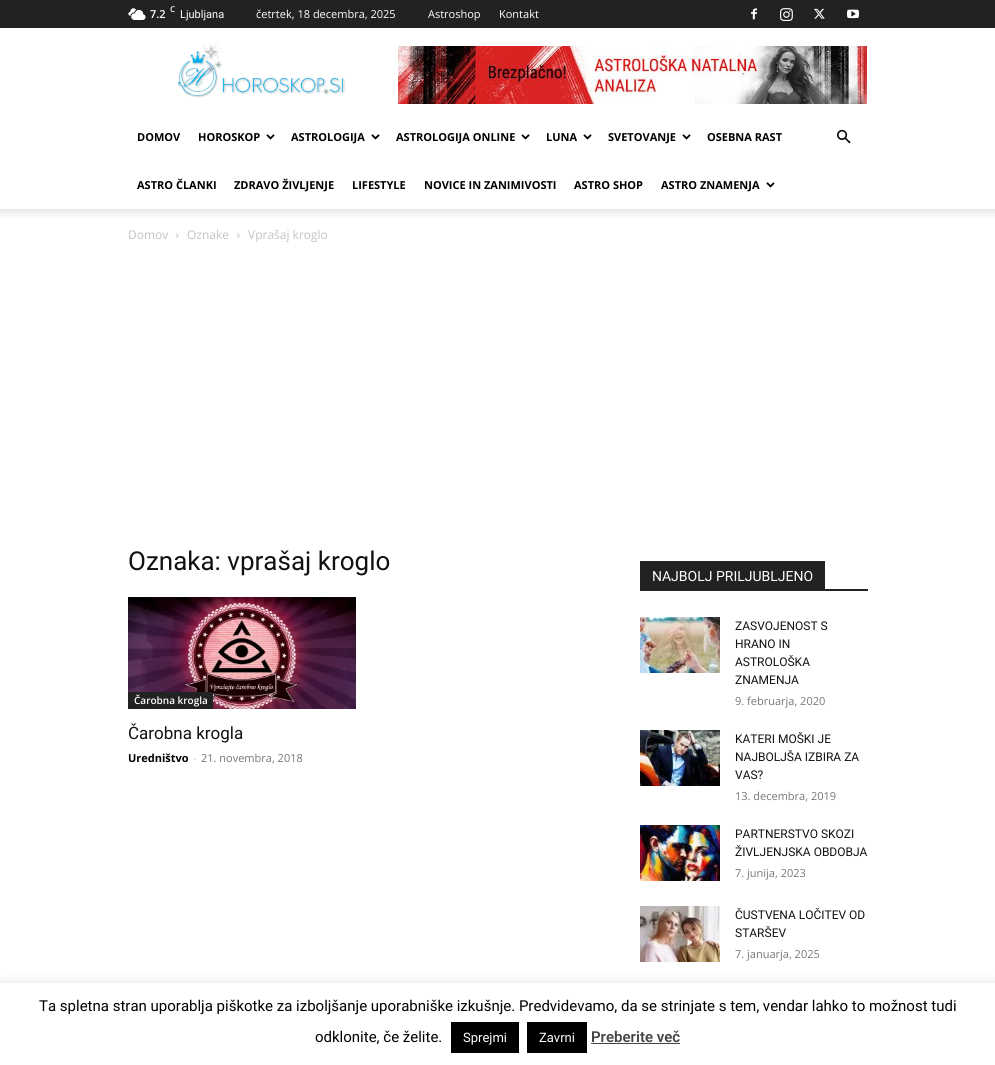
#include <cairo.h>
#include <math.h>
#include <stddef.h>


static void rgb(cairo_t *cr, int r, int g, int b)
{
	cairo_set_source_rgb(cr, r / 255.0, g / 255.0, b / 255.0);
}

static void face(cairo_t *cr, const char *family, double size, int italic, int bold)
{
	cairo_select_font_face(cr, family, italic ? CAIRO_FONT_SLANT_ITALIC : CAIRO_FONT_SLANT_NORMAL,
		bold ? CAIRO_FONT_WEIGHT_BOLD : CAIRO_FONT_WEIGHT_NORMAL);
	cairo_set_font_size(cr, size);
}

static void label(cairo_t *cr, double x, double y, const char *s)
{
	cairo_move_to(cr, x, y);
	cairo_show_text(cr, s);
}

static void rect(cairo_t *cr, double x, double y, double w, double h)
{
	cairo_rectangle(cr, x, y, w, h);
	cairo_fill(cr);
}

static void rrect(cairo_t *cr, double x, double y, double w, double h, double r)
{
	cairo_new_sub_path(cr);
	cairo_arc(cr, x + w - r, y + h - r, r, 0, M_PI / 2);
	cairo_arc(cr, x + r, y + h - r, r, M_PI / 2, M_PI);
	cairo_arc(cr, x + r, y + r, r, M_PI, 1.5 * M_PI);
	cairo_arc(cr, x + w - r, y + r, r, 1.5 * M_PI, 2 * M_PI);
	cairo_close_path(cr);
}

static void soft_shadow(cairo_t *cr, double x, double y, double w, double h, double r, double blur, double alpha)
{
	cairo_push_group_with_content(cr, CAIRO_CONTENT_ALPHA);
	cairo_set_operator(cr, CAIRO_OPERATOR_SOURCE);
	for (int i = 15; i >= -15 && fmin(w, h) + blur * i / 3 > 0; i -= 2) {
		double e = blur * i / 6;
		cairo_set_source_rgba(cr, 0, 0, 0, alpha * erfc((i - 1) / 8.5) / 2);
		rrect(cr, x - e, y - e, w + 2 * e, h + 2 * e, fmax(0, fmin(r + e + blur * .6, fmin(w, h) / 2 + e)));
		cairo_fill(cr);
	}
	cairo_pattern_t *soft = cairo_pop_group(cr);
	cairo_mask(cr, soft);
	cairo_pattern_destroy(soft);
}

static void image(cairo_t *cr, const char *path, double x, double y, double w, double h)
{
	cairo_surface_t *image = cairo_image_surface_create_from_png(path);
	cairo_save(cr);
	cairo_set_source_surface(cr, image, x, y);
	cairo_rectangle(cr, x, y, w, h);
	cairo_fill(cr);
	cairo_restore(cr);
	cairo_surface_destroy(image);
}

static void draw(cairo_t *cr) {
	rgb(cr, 255, 255, 255);
	cairo_paint(cr);
	rgb(cr, 34, 34, 34);
	rect(cr, 0, 0, 995, 28);
	image(cr, "image0.png", 128, 8, 18, 12);
	face(cr, "Open Sans SemiBold", 11, 0, 0);
	rgb(cr, 255, 255, 255);
	label(cr, 150, 18, "7.2");
	face(cr, "Open Sans SemiBold", 8, 0, 0);
	label(cr, 170, 12, "C");
	face(cr, "Roboto", 11, 0, 0);
	label(cr, 180, 18, "Ljubljana");
	face(cr, "Open Sans", 11, 0, 0);
	label(cr, 256, 18, "četrtek, 18 decembra, 2025");
	label(cr, 428, 18, "Astroshop");
	label(cr, 499, 18, "Kontakt");
	image(cr, "image1.png", 751, 8, 6, 12);
	image(cr, "image2.png", 780, 8, 13, 13);
	image(cr, "image3.png", 814, 8, 11, 11);
	image(cr, "image4.png", 847, 9, 12, 10);
	image(cr, "image5.png", 178, 43, 168, 55);
	image(cr, "image6.png", 398, 46, 469, 58);
	face(cr, "Open Sans", 11, 0, 1);
	rgb(cr, 0, 0, 0);
	label(cr, 137, 141, "DOMOV");
	label(cr, 198, 141, "HOROSKOP");
	image(cr, "image7.png", 266, 134, 9, 6);
	label(cr, 291, 141, "ASTROLOGIJA");
	image(cr, "image7.png", 371, 134, 9, 6);
	label(cr, 396, 141, "ASTROLOGIJA ONLINE");
	image(cr, "image7.png", 521, 134, 9, 6);
	label(cr, 546, 141, "LUNA");
	image(cr, "image7.png", 583, 134, 9, 6);
	label(cr, 608, 141, "SVETOVANJE");
	image(cr, "image7.png", 682, 134, 9, 6);
	label(cr, 707, 141, "OSEBNA RAST");
	label(cr, 137, 189, "ASTRO ČLANKI");
	label(cr, 234, 189, "ZDRAVO ŽIVLJENJE");
	label(cr, 352, 189, "LIFESTYLE");
	label(cr, 424, 189, "NOVICE IN ZANIMIVOSTI");
	label(cr, 574, 189, "ASTRO SHOP");
	label(cr, 661, 189, "ASTRO ZNAMENJA");
	image(cr, "image7.png", 766, 182, 9, 6);
	image(cr, "image8.png", 837, 129, 14, 15);
	image(cr, "image9.png", 0, 209, 995, 9);
	face(cr, "Open Sans", 12, 0, 0);
	rgb(cr, 195, 195, 195);
	label(cr, 128, 239, "Domov");
	image(cr, "image10.png", 176, 233, 3, 5);
	label(cr, 187, 239, "Oznake");
	image(cr, "image10.png", 237, 233, 3, 5);
	label(cr, 248, 239, "Vprašaj kroglo");
	face(cr, "Roboto", 26, 0, 0);
	rgb(cr, 17, 17, 17);
	label(cr, 128, 570, "Oznaka: vprašaj kroglo");
	image(cr, "image11.png", 128, 597, 228, 112);
	rgb(cr, 34, 34, 34);
	rect(cr, 128, 692, 85, 17);
	face(cr, "Open Sans SemiBold", 10, 0, 0);
	rgb(cr, 255, 255, 255);
	label(cr, 134, 704, "Čarobna krogla");
	face(cr, "Roboto", 17, 0, 0);
	rgb(cr, 17, 17, 17);
	label(cr, 128, 739, "Čarobna krogla");
	face(cr, "Open Sans", 11, 0, 1);
	rgb(cr, 0, 0, 0);
	label(cr, 128, 762, "Uredništvo");
	face(cr, "Open Sans", 11, 0, 0);
	rgb(cr, 204, 204, 204);
	label(cr, 193, 762, "-");
	rgb(cr, 118, 118, 118);
	label(cr, 201, 762, "21. novembra, 2018");
	rgb(cr, 34, 34, 34);
	rect(cr, 640, 589, 228, 2);
	rect(cr, 640, 561, 185, 28);
	face(cr, "Roboto", 14, 0, 0);
	rgb(cr, 255, 255, 255);
	label(cr, 652, 581, "NAJBOLJ PRILJUBLJENO");
	image(cr, "image12.png", 640, 617, 80, 56);
	face(cr, "Roboto", 12, 0, 0);
	rgb(cr, 17, 17, 17);
	label(cr, 735, 630, "ZASVOJENOST S");
	label(cr, 735, 648, "HRANO IN");
	label(cr, 735, 666, "ASTROLOŠKA");
	label(cr, 735, 684, "ZNAMENJA");
	face(cr, "Open Sans", 11, 0, 0);
	rgb(cr, 118, 118, 118);
	label(cr, 735, 705, "9. februarja, 2020");
	image(cr, "image13.png", 640, 730, 80, 56);
	face(cr, "Roboto", 12, 0, 0);
	rgb(cr, 17, 17, 17);
	label(cr, 735, 743, "KATERI MOŠKI JE");
	label(cr, 735, 761, "NAJBOLJŠA IZBIRA ZA");
	label(cr, 735, 779, "VAS?");
	face(cr, "Open Sans", 11, 0, 0);
	rgb(cr, 118, 118, 118);
	label(cr, 735, 800, "13. decembra, 2019");
	image(cr, "image14.png", 640, 825, 80, 56);
	face(cr, "Roboto", 12, 0, 0);
	rgb(cr, 17, 17, 17);
	label(cr, 735, 838, "PARTNERSTVO SKOZI");
	label(cr, 735, 856, "ŽIVLJENJSKA OBDOBJA");
	face(cr, "Open Sans", 11, 0, 0);
	rgb(cr, 118, 118, 118);
	label(cr, 735, 877, "7. junija, 2023");
	image(cr, "image15.png", 640, 906, 80, 56);
	face(cr, "Roboto", 12, 0, 0);
	rgb(cr, 17, 17, 17);
	label(cr, 735, 919, "ČUSTVENA LOČITEV OD");
	label(cr, 735, 937, "STARŠEV");
	face(cr, "Open Sans", 11, 0, 0);
	rgb(cr, 118, 118, 118);
	label(cr, 735, 958, "7. januarja, 2025");
	rgb(cr, 172, 171, 171);
	soft_shadow(cr, 0, 982, 995, 82, 0, 5, 0.3);
	rgb(cr, 255, 255, 255);
	rect(cr, 0, 983, 995, 82);
	face(cr, "Roboto", 15, 0, 0);
	rgb(cr, 0, 0, 0);
	label(cr, 39, 1011, "Ta spletna stran uporablja piškotke za izboljšanje uporabniške izkušnje. Predvidevamo, da se strinjate s tem, vendar lahko to možnost tudi");
	label(cr, 315, 1042, "odklonite, če želite.");
	rect(cr, 451, 1022, 68, 31);
	face(cr, "Roboto", 13, 0, 0);
	rgb(cr, 255, 255, 255);
	label(cr, 463, 1042, "Sprejmi");
	rgb(cr, 0, 0, 0);
	rect(cr, 527, 1022, 60, 31);
	rgb(cr, 255, 255, 255);
	label(cr, 539, 1042, "Zavrni");
	face(cr, "Roboto SemiBold", 15, 0, 0);
	rgb(cr, 68, 68, 68);
	label(cr, 591, 1042, "Preberite več");
	rect(cr, 591, 1043, 89, 1);
}

int main(void) {
	cairo_surface_t *surface = cairo_image_surface_create(CAIRO_FORMAT_RGB24, 995, 1065);
	cairo_t *cr = cairo_create(surface);
	cairo_font_options_t *options = cairo_font_options_create();
	cairo_font_options_set_hint_metrics(options, CAIRO_HINT_METRICS_OFF);
	cairo_font_options_set_hint_style(options, CAIRO_HINT_STYLE_NONE);
	cairo_set_font_options(cr, options);
	cairo_set_miter_limit(cr, 4);
	draw(cr);
	cairo_surface_write_to_png(surface, "render.png");
	cairo_font_options_destroy(options);
	cairo_destroy(cr);
	cairo_surface_destroy(surface);
	return 0;
}
